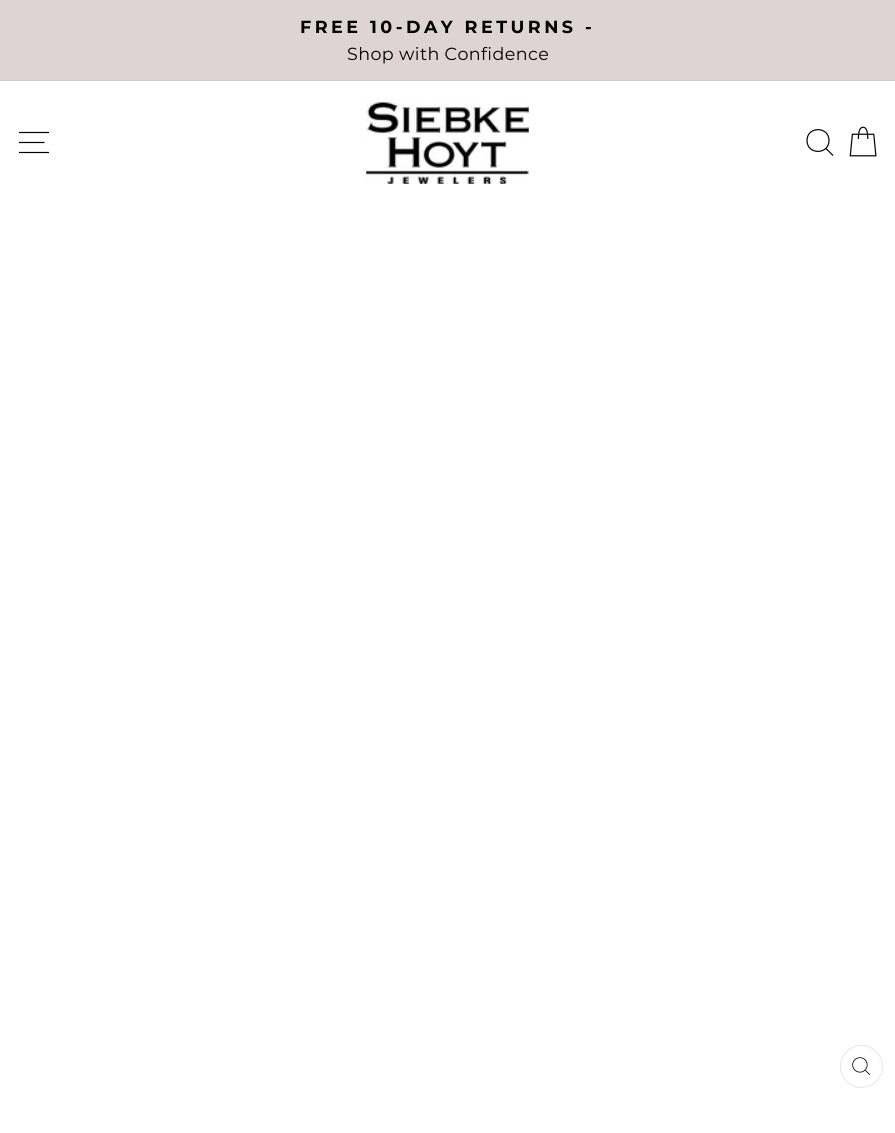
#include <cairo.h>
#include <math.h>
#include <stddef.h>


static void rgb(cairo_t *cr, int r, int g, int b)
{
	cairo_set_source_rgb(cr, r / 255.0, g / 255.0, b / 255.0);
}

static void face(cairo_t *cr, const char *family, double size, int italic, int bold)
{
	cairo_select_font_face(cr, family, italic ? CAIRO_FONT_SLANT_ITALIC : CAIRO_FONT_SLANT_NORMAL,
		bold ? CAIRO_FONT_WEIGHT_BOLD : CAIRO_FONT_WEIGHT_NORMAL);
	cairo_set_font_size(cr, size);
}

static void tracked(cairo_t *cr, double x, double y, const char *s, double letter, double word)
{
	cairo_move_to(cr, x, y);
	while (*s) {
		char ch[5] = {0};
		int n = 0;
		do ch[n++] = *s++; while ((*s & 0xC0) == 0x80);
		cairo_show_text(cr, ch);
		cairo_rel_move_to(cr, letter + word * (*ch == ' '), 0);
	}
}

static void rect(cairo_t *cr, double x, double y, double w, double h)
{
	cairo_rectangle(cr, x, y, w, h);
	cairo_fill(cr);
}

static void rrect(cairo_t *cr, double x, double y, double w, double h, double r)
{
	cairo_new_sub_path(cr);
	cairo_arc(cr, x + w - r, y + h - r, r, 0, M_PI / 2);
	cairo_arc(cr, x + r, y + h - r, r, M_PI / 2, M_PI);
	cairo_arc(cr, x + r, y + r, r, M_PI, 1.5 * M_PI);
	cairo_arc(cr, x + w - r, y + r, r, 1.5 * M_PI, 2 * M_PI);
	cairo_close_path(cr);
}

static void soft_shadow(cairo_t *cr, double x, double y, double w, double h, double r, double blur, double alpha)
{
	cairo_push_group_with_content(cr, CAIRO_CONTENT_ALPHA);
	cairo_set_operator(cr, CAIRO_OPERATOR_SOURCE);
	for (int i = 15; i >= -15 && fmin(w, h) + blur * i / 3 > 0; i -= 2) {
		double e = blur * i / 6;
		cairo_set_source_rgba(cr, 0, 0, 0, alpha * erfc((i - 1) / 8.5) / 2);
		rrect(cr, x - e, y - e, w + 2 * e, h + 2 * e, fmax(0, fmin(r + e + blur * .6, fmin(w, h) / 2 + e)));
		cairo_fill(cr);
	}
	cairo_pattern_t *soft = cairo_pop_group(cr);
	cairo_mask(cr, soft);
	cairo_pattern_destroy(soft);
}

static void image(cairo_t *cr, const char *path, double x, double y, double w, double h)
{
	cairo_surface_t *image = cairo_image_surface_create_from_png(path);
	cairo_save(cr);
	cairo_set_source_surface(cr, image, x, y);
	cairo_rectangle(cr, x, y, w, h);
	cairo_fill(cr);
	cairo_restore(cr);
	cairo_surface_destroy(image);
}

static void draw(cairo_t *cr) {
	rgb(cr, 255, 255, 255);
	cairo_paint(cr);
	rgb(cr, 223, 212, 212);
	rect(cr, 0, 0, 895, 81);
	face(cr, "Montserrat", 17.5, 0, 1);
	rgb(cr, 0, 0, 0);
	tracked(cr, 300, 33, "FREE 10-DAY RETURNS -", 3.5, 0);
	face(cr, "Montserrat", 17.5, 0, 0);
	tracked(cr, 347, 60, "Shop with Confidence", 0.4, 0);
	rgb(cr, 0, 0, 0);
	soft_shadow(cr, 0, 81, 895, 124, 0, 0.5, 0.2);
	rgb(cr, 255, 255, 255);
	rect(cr, 0, 81, 895, 125);
	cairo_new_path(cr);
	cairo_move_to(cr, 19, 132.5);
	cairo_line_to(cr, 49, 132.5);
	cairo_move_to(cr, 19, 142.5);
	cairo_line_to(cr, 44.5, 142.5);
	cairo_move_to(cr, 19, 152.5);
	cairo_line_to(cr, 49, 152.5);
	rgb(cr, 0, 0, 0);
	cairo_set_line_width(cr, 1.2);
	cairo_stroke(cr);
	image(cr, "image0.png", 366, 102, 163, 82);
	cairo_new_path(cr);
	cairo_move_to(cr, 829, 140.5);
	cairo_curve_to(cr, 829, 155, 807, 155, 807, 140.5);
	cairo_curve_to(cr, 807, 126, 829, 126, 829, 140.5);
	cairo_close_path(cr);
	cairo_move_to(cr, 833, 155.5);
	cairo_line_to(cr, 826, 148.5);
	cairo_stroke(cr);
	image(cr, "image1.png", 849, 126, 28, 31);
	cairo_arc(cr, 861.5, 1066.5, 21, 0, 2 * M_PI);
	rgb(cr, 232, 232, 225);
	cairo_set_line_width(cr, 1);
	cairo_stroke(cr);
	image(cr, "image2.png", 852, 1057, 18, 18);
}

int main(void) {
	cairo_surface_t *surface = cairo_image_surface_create(CAIRO_FORMAT_RGB24, 895, 1133);
	cairo_t *cr = cairo_create(surface);
	cairo_font_options_t *options = cairo_font_options_create();
	cairo_font_options_set_hint_metrics(options, CAIRO_HINT_METRICS_OFF);
	cairo_font_options_set_hint_style(options, CAIRO_HINT_STYLE_NONE);
	cairo_set_font_options(cr, options);
	cairo_set_miter_limit(cr, 4);
	draw(cr);
	cairo_surface_write_to_png(surface, "render.png");
	cairo_font_options_destroy(options);
	cairo_destroy(cr);
	cairo_surface_destroy(surface);
	return 0;
}
